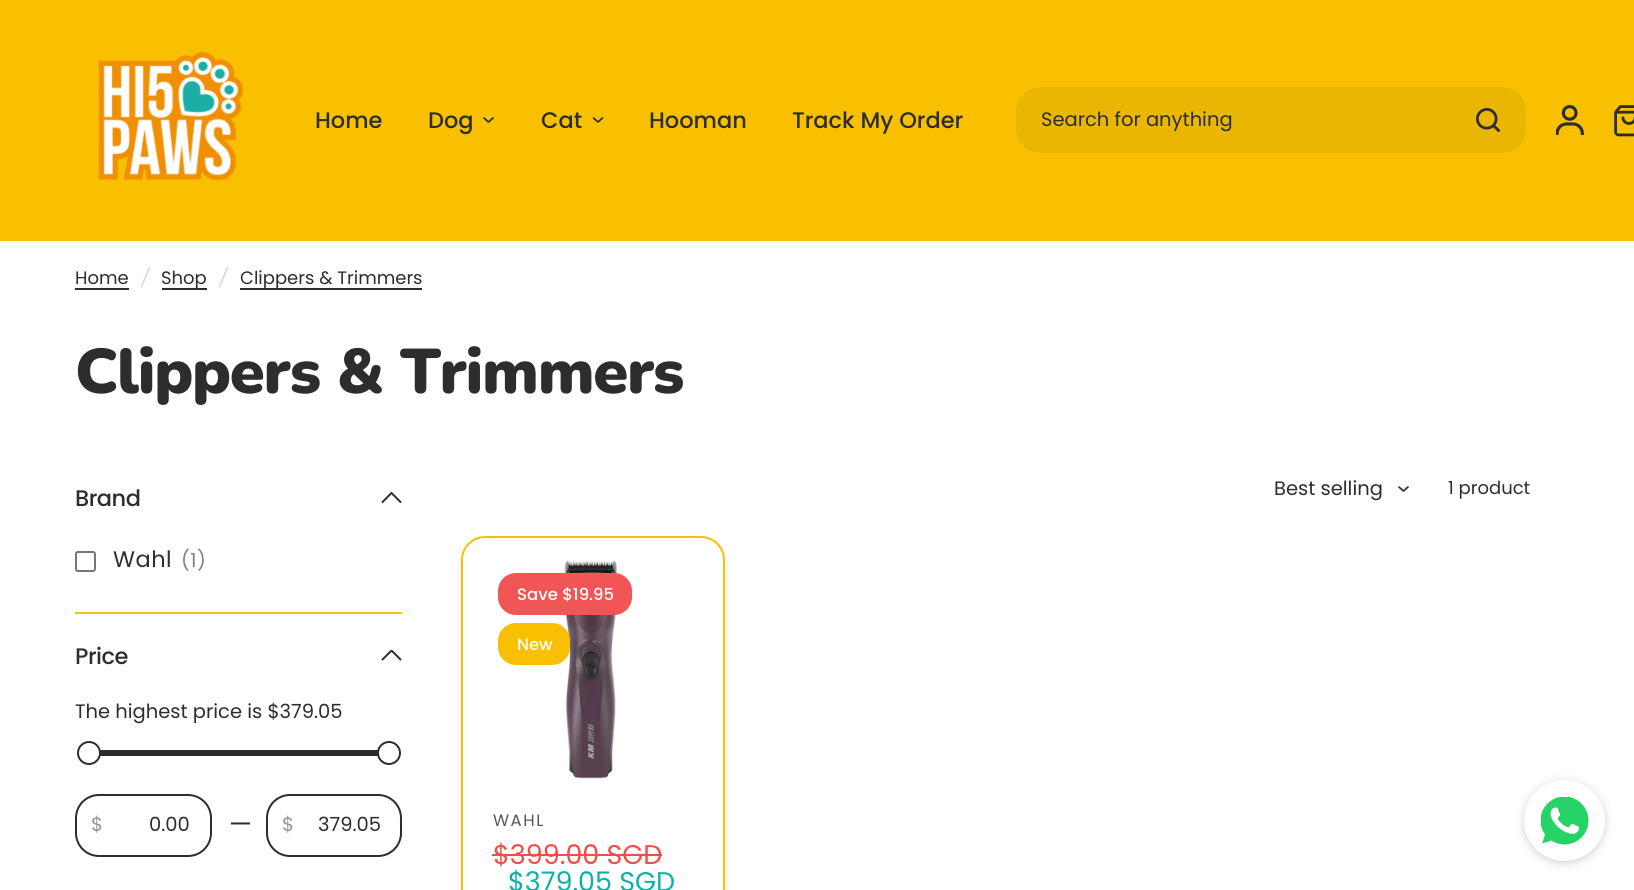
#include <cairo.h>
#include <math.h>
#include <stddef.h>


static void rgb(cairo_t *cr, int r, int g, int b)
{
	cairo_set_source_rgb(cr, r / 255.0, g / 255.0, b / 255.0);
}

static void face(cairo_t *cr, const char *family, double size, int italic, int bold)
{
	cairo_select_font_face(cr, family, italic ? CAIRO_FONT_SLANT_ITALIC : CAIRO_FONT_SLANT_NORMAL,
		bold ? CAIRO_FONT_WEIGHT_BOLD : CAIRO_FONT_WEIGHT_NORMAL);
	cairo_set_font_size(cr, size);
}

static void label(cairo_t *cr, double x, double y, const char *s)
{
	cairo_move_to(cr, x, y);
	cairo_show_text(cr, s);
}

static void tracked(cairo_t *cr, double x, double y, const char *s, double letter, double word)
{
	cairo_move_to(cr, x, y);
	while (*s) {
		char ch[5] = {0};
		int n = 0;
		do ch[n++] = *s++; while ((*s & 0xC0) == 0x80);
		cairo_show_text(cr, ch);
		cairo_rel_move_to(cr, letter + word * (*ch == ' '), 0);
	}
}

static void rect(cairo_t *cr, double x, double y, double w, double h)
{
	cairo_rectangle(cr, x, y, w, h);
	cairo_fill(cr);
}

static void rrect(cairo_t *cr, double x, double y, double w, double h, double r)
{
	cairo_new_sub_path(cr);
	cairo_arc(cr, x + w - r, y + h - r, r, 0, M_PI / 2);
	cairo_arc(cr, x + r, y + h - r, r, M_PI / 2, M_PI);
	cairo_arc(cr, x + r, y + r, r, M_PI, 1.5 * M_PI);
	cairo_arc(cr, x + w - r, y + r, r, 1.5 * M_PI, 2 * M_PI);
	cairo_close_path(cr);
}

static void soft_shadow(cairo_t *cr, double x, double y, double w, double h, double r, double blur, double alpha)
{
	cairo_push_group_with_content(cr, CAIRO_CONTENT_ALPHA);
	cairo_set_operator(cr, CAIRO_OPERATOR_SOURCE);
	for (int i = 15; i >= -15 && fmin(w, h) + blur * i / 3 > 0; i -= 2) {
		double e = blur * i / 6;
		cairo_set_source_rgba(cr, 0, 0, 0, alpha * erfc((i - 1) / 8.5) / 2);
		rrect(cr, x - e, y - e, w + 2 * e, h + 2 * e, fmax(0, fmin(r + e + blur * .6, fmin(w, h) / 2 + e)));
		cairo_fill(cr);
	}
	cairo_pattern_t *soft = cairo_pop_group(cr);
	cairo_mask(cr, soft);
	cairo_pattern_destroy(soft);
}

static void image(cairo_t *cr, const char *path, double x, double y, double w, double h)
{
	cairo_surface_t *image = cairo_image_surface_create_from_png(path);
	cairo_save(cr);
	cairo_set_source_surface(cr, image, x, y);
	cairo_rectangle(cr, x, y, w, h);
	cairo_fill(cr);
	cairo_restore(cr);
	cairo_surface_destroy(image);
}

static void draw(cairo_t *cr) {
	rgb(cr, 255, 255, 255);
	cairo_paint(cr);
	rgb(cr, 248, 192, 1);
	rect(cr, 0, 0, 1634, 241);
	image(cr, "image0.png", 98, 51, 146, 130);
	face(cr, "Poppins Medium", 22.5, 0, 0);
	rgb(cr, 44, 45, 46);
	label(cr, 315, 128, "Home");
	label(cr, 428, 128, "Dog");
	cairo_new_path(cr);
	cairo_move_to(cr, 493, 118);
	cairo_line_to(cr, 488.5, 122);
	cairo_line_to(cr, 484, 118);
	cairo_set_line_width(cr, 1.7);
	cairo_set_line_cap(cr, CAIRO_LINE_CAP_ROUND);
	cairo_set_line_join(cr, CAIRO_LINE_JOIN_ROUND);
	cairo_stroke(cr);
	label(cr, 541, 128, "Cat");
	cairo_new_path(cr);
	cairo_move_to(cr, 602.5, 118);
	cairo_line_to(cr, 598, 122);
	cairo_line_to(cr, 593.5, 118);
	cairo_stroke(cr);
	label(cr, 649, 128, "Hooman");
	label(cr, 792, 128, "Track My Order");
	rgb(cr, 234, 182, 4);
	rrect(cr, 1016, 87, 510, 66, 24);
	cairo_fill(cr);
	face(cr, "Poppins", 19.5, 0, 0);
	rgb(cr, 44, 45, 46);
	label(cr, 1041, 126, "Search for anything");
	image(cr, "image1.png", 1476, 108, 24, 24);
	image(cr, "image2.png", 1556, 105, 28, 30);
	image(cr, "image3.png", 1614, 105, 20, 32);
	face(cr, "Poppins", 18, 0, 0);
	label(cr, 75, 284, "Home");
	rect(cr, 75, 288, 54, 2);
	face(cr, "Poppins", 18, 1, 0);
	rgb(cr, 213, 213, 213);
	label(cr, 141, 284, "/");
	rgb(cr, 44, 45, 46);
	rect(cr, 162, 288, 45, 2);
	face(cr, "Poppins", 18, 0, 0);
	label(cr, 161, 284, "Shop");
	face(cr, "Poppins", 18, 1, 0);
	rgb(cr, 213, 213, 213);
	label(cr, 219, 284, "/");
	rgb(cr, 44, 45, 46);
	rect(cr, 240, 288, 182, 2);
	face(cr, "Poppins", 18, 0, 0);
	label(cr, 240, 284, "Clippers & Trimmers");
	face(cr, "Nunito Black", 63, 0, 0);
	tracked(cr, 75, 393, "Clippers & Trimmers", -1.25, 0);
	rgb(cr, 248, 192, 1);
	rect(cr, 75, 612, 327, 2);
	face(cr, "Poppins Medium", 22.5, 0, 0);
	rgb(cr, 44, 45, 46);
	tracked(cr, 75, 506, "Brand", -0.5, 0);
	cairo_new_path(cr);
	cairo_move_to(cr, 400.5, 502);
	cairo_line_to(cr, 391.5, 493);
	cairo_line_to(cr, 382.5, 502);
	cairo_set_line_width(cr, 2);
	cairo_stroke(cr);
	rrect(cr, 76, 552, 19, 19, 2);
	rgb(cr, 118, 118, 118);
	cairo_set_line_cap(cr, CAIRO_LINE_CAP_BUTT);
	cairo_set_line_join(cr, CAIRO_LINE_JOIN_MITER);
	cairo_stroke(cr);
	face(cr, "Poppins", 22.5, 0, 0);
	rgb(cr, 44, 45, 46);
	tracked(cr, 113, 567, "Wahl", 0.5, 0);
	face(cr, "Poppins", 19.5, 0, 0);
	rgb(cr, 128, 129, 130);
	tracked(cr, 181, 567, "(1)", 0.5, 0);
	face(cr, "Poppins Medium", 22.5, 0, 0);
	rgb(cr, 44, 45, 46);
	tracked(cr, 75, 664, "Price", -0.5, 0);
	cairo_save(cr);
	cairo_rectangle(cr, 381, 650, 21, 12);
	cairo_clip(cr);
	cairo_new_path(cr);
	cairo_move_to(cr, 400.5, 659.5);
	cairo_line_to(cr, 391.5, 650.5);
	cairo_line_to(cr, 382.5, 659.5);
	cairo_set_line_cap(cr, CAIRO_LINE_CAP_ROUND);
	cairo_set_line_join(cr, CAIRO_LINE_JOIN_ROUND);
	cairo_stroke(cr);
	cairo_restore(cr);
	face(cr, "Poppins", 19.5, 0, 0);
	label(cr, 75, 718, "The highest price is $379.05");
	rect(cr, 100, 750, 278, 6);
	rgb(cr, 255, 255, 255);
	cairo_new_path(cr);
	cairo_arc(cr, 89, 753, 11, 0, 2 * M_PI);
	cairo_fill_preserve(cr);
	rgb(cr, 44, 45, 46);
	cairo_stroke(cr);
	rgb(cr, 255, 255, 255);
	cairo_arc(cr, 389, 753, 11, 0, 2 * M_PI);
	cairo_fill_preserve(cr);
	rgb(cr, 44, 45, 46);
	cairo_stroke(cr);
	rrect(cr, 76, 795, 135, 61, 23);
	cairo_stroke(cr);
	rgb(cr, 150, 150, 151);
	label(cr, 91, 831, "$");
	rgb(cr, 44, 45, 46);
	label(cr, 149, 831, "0.00");
	face(cr, "Poppins", 26, 0, 0);
	label(cr, 229, 833, "—");
	rrect(cr, 267, 795, 134, 61, 23);
	cairo_stroke(cr);
	face(cr, "Poppins", 19.5, 0, 0);
	rgb(cr, 150, 150, 151);
	label(cr, 282, 831, "$");
	rgb(cr, 44, 45, 46);
	label(cr, 318, 831, "379.05");
	label(cr, 1274, 495, "Best selling");
	cairo_new_path(cr);
	cairo_move_to(cr, 1408, 487);
	cairo_line_to(cr, 1403.5, 491);
	cairo_line_to(cr, 1399, 487);
	cairo_set_line_width(cr, 1.7);
	cairo_set_line_cap(cr, CAIRO_LINE_CAP_ROUND);
	cairo_set_line_join(cr, CAIRO_LINE_JOIN_ROUND);
	cairo_stroke(cr);
	face(cr, "Poppins", 18, 0, 0);
	label(cr, 1448, 494, "1 product");
	rgb(cr, 0, 0, 0);
	soft_shadow(cr, 461, 542, 264, 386, 24, 4.5, 0.08);
	rgb(cr, 255, 255, 255);
	rrect(cr, 462, 537, 262, 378, 23);
	cairo_fill_preserve(cr);
	rgb(cr, 248, 192, 1);
	cairo_set_line_width(cr, 2);
	cairo_set_line_cap(cr, CAIRO_LINE_CAP_BUTT);
	cairo_set_line_join(cr, CAIRO_LINE_JOIN_MITER);
	cairo_stroke(cr);
	image(cr, "image4.png", 564, 560, 53, 219);
	rgb(cr, 242, 85, 85);
	rrect(cr, 498, 573, 134, 42, 18);
	cairo_fill(cr);
	face(cr, "Poppins Medium", 16.5, 0, 0);
	rgb(cr, 255, 255, 255);
	label(cr, 517, 600, "Save $19.95");
	rgb(cr, 248, 192, 1);
	rrect(cr, 498, 623, 72, 42, 18);
	cairo_fill(cr);
	rgb(cr, 255, 255, 255);
	label(cr, 517, 650, "New");
	face(cr, "Poppins", 16.5, 0, 0);
	rgb(cr, 86, 87, 88);
	tracked(cr, 493, 826, "WAHL", 1.5, 0);
	face(cr, "Poppins", 27, 0, 0);
	rgb(cr, 235, 79, 69);
	label(cr, 493, 864, "$399.00 SGD");
	rect(cr, 492, 854, 170, 2);
	rgb(cr, 13, 178, 167);
	label(cr, 508, 891, "$379.05 SGD");
	rgb(cr, 27, 27, 27);
	soft_shadow(cr, 1524, 782, 81, 81, 40.5, 4.5, 0.2);
	rgb(cr, 255, 255, 255);
	cairo_arc(cr, 1564.5, 820.5, 39.5, 0, 2 * M_PI);
	cairo_fill_preserve(cr);
	cairo_stroke(cr);
	image(cr, "image5.png", 1541, 797, 48, 48);
}

int main(void) {
	cairo_surface_t *surface = cairo_image_surface_create(CAIRO_FORMAT_RGB24, 1634, 890);
	cairo_t *cr = cairo_create(surface);
	cairo_font_options_t *options = cairo_font_options_create();
	cairo_font_options_set_hint_metrics(options, CAIRO_HINT_METRICS_OFF);
	cairo_font_options_set_hint_style(options, CAIRO_HINT_STYLE_NONE);
	cairo_set_font_options(cr, options);
	cairo_set_miter_limit(cr, 4);
	draw(cr);
	cairo_surface_write_to_png(surface, "render.png");
	cairo_font_options_destroy(options);
	cairo_destroy(cr);
	cairo_surface_destroy(surface);
	return 0;
}
